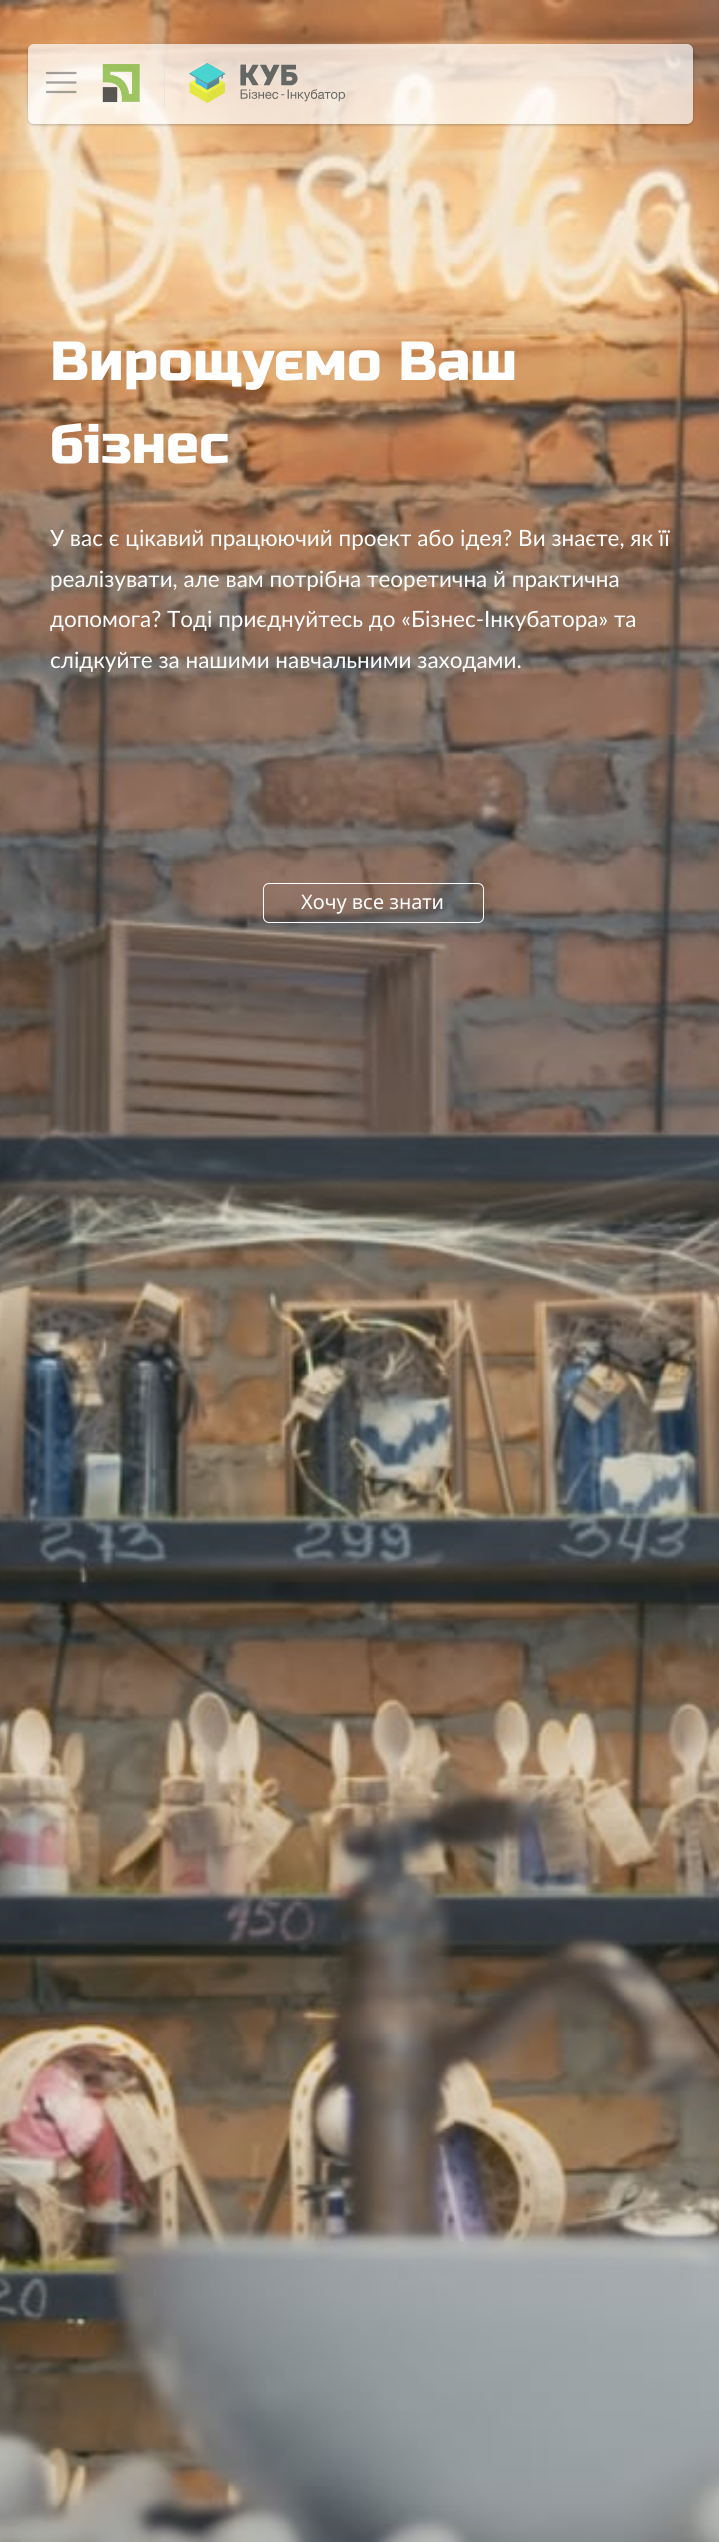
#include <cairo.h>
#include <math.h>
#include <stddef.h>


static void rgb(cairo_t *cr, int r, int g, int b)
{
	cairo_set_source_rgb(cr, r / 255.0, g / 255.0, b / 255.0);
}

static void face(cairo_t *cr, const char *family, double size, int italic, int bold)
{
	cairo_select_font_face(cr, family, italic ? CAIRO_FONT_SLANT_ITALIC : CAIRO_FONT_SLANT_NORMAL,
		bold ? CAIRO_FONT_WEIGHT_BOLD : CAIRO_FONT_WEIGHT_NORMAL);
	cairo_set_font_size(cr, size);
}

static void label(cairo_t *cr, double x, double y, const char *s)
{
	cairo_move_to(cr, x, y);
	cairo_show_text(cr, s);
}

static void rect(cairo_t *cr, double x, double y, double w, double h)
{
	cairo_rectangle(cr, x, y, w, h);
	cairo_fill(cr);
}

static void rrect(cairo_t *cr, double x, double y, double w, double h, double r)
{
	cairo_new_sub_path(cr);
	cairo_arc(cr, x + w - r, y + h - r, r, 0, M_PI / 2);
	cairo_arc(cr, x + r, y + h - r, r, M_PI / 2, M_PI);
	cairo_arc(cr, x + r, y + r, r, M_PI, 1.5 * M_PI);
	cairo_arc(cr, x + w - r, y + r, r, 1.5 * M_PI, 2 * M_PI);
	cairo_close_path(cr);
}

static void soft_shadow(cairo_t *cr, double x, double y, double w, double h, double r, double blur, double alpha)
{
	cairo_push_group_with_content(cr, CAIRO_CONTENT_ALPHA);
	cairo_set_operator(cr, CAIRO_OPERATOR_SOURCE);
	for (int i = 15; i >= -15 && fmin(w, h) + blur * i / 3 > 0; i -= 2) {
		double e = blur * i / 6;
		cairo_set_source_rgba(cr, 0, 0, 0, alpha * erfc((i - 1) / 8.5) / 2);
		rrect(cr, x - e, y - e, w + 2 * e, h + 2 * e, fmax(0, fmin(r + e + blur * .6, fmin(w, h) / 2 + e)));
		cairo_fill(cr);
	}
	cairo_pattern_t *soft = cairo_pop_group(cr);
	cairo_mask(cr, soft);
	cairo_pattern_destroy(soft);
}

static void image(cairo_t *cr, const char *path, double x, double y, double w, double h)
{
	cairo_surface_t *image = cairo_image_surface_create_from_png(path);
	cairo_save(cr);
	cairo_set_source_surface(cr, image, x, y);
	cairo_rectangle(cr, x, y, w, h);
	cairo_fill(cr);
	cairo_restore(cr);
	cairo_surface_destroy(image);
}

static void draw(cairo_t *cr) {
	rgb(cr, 255, 255, 255);
	cairo_paint(cr);
	image(cr, "image2.png", 0, 0, 719, 2542);
	cairo_save(cr);
	cairo_set_fill_rule(cr, CAIRO_FILL_RULE_EVEN_ODD);
	cairo_new_path(cr);
	cairo_move_to(cr, 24, 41);
	cairo_line_to(cr, 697, 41);
	cairo_line_to(cr, 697, 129);
	cairo_line_to(cr, 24, 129);
	cairo_close_path(cr);
	cairo_move_to(cr, 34, 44);
	cairo_line_to(cr, 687, 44);
	cairo_curve_to(cr, 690.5, 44, 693, 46.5, 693, 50);
	cairo_line_to(cr, 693, 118);
	cairo_curve_to(cr, 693, 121.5, 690.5, 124, 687, 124);
	cairo_line_to(cr, 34, 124);
	cairo_curve_to(cr, 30.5, 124, 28, 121.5, 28, 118);
	cairo_line_to(cr, 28, 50);
	cairo_curve_to(cr, 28, 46.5, 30.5, 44, 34, 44);
	cairo_close_path(cr);
	cairo_clip(cr);
	rgb(cr, 0, 0, 0);
	soft_shadow(cr, 28, 45, 665, 80, 6, 1, 0.17);
	cairo_restore(cr);
	cairo_save(cr);
	cairo_set_fill_rule(cr, CAIRO_FILL_RULE_EVEN_ODD);
	cairo_new_path(cr);
	cairo_move_to(cr, 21, 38);
	cairo_line_to(cr, 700, 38);
	cairo_line_to(cr, 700, 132);
	cairo_line_to(cr, 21, 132);
	cairo_close_path(cr);
	cairo_move_to(cr, 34, 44);
	cairo_line_to(cr, 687, 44);
	cairo_curve_to(cr, 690.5, 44, 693, 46.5, 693, 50);
	cairo_line_to(cr, 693, 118);
	cairo_curve_to(cr, 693, 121.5, 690.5, 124, 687, 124);
	cairo_line_to(cr, 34, 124);
	cairo_curve_to(cr, 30.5, 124, 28, 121.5, 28, 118);
	cairo_line_to(cr, 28, 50);
	cairo_curve_to(cr, 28, 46.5, 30.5, 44, 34, 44);
	cairo_close_path(cr);
	cairo_clip(cr);
	rgb(cr, 0, 0, 0);
	soft_shadow(cr, 28, 45, 665, 80, 6, 2, 0.08);
	cairo_restore(cr);
	cairo_set_source_rgba(cr, 1, 1, 1, 0.7);
	rrect(cr, 28, 44, 665, 80, 6);
	cairo_fill(cr);
	cairo_new_path(cr);
	cairo_move_to(cr, 47, 73);
	cairo_line_to(cr, 75.5, 73);
	cairo_move_to(cr, 47, 82.5);
	cairo_line_to(cr, 75.5, 82.5);
	cairo_move_to(cr, 47, 92);
	cairo_line_to(cr, 75.5, 92);
	cairo_set_source_rgba(cr, 0, 0, 0, 0.35);
	cairo_set_line_width(cr, 2.3);
	cairo_set_line_cap(cr, CAIRO_LINE_CAP_ROUND);
	cairo_stroke(cr);
	image(cr, "image0.png", 102, 64, 38, 39);
	cairo_set_source_rgba(cr, 0.871, 0.882, 0.89, 0.7);
	rect(cr, 164, 58, 1, 50);
	image(cr, "image1.png", 189, 63, 157, 40);
	face(cr, "Russo One", 55, 0, 0);
	rgb(cr, 255, 255, 255);
	label(cr, 50, 380, "Вирощуємо Ваш");
	label(cr, 50, 463, "бізнес");
	face(cr, "Lato", 22.5, 0, 0);
	label(cr, 50, 546, "У вас є цікавий працюючий проект або ідея? Ви знаєте, як її");
	label(cr, 50, 587, "реалізувати, але вам потрібна теоретична й практична");
	label(cr, 50, 627, "допомога? Тоді приєднуйтесь до «Бізнес-Інкубатора» та");
	label(cr, 50, 668, "слідкуйте за нашими навчальними заходами.");
	rrect(cr, 263.5, 883.5, 220, 39, 5.5);
	cairo_set_line_width(cr, 1);
	cairo_set_line_cap(cr, CAIRO_LINE_CAP_BUTT);
	cairo_stroke(cr);
	face(cr, "Noto Sans", 20, 0, 0);
	label(cr, 301, 909, "Хочу все знати");
}

int main(void) {
	cairo_surface_t *surface = cairo_image_surface_create(CAIRO_FORMAT_RGB24, 719, 2542);
	cairo_t *cr = cairo_create(surface);
	cairo_font_options_t *options = cairo_font_options_create();
	cairo_font_options_set_hint_metrics(options, CAIRO_HINT_METRICS_OFF);
	cairo_font_options_set_hint_style(options, CAIRO_HINT_STYLE_NONE);
	cairo_set_font_options(cr, options);
	cairo_set_miter_limit(cr, 4);
	draw(cr);
	cairo_surface_write_to_png(surface, "render.png");
	cairo_font_options_destroy(options);
	cairo_destroy(cr);
	cairo_surface_destroy(surface);
	return 0;
}
